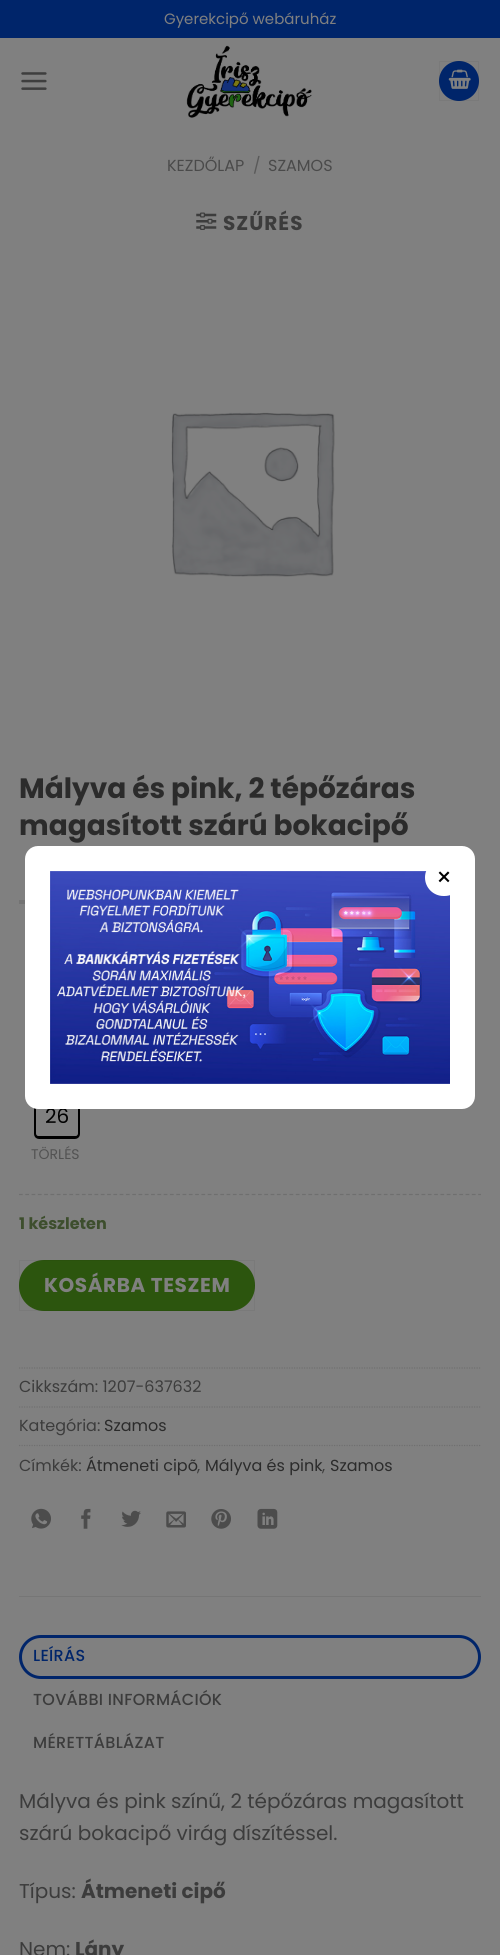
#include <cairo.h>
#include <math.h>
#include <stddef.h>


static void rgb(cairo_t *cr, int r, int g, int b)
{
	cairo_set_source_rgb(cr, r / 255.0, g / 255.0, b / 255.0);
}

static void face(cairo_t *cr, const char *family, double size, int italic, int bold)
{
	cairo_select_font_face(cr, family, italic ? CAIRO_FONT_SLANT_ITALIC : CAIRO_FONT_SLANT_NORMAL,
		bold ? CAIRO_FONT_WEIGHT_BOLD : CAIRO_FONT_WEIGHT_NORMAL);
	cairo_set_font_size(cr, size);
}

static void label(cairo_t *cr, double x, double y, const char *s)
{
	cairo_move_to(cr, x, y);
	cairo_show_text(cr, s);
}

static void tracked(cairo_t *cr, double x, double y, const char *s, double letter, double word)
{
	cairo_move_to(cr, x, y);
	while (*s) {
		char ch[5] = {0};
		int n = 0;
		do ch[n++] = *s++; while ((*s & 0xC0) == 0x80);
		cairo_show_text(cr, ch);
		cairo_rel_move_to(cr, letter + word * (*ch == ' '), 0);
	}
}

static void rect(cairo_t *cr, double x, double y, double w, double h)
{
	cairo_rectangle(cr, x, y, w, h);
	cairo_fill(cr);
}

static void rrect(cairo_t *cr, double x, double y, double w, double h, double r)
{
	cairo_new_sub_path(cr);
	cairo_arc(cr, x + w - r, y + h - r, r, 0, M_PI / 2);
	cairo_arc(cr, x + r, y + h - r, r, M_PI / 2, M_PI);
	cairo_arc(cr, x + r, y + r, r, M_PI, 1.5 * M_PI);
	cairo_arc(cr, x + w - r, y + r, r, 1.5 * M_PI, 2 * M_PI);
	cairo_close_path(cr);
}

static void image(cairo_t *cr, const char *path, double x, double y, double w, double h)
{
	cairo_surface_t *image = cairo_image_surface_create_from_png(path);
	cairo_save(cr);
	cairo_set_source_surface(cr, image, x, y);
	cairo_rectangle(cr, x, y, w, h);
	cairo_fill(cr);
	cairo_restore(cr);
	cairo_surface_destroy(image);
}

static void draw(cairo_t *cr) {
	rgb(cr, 128, 128, 128);
	cairo_paint(cr);
	rgb(cr, 0, 37, 106);
	rect(cr, 0, 0, 500, 38);
	face(cr, "Poppins", 15, 0, 0);
	rgb(cr, 128, 128, 128);
	label(cr, 164, 24, "Gyerekcipő webáruház");
	image(cr, "image0.png", 21, 72, 26, 18);
	image(cr, "image1.png", 186, 45, 126, 73);
	rgb(cr, 0, 37, 106);
	cairo_arc(cr, 459, 81, 20, 0, 2 * M_PI);
	cairo_fill(cr);
	cairo_rectangle(cr, 439.5, 61.5, 39, 39);
	cairo_set_source_rgba(cr, 0, 0, 0, 0.05);
	cairo_set_line_width(cr, 1);
	cairo_stroke(cr);
	image(cr, "image2.png", 448, 69, 23, 20);
	face(cr, "Poppins", 16, 0, 0);
	rgb(cr, 74, 74, 74);
	label(cr, 167, 171, "KEZDŐLAP");
	rgb(cr, 89, 89, 89);
	label(cr, 253, 171, "/");
	rgb(cr, 74, 74, 74);
	label(cr, 268, 171, "SZAMOS");
	image(cr, "image3.png", 196, 212, 21, 18);
	face(cr, "Poppins", 20, 0, 1);
	rgb(cr, 60, 60, 60);
	tracked(cr, 223, 230, "SZŰRÉS", 1, 0);
	image(cr, "image4.png", 171, 412, 164, 165);
	face(cr, "Poppins", 28, 0, 1);
	rgb(cr, 43, 43, 43);
	label(cr, 19, 798, "Mályva és pink, 2 tépőzáras");
	label(cr, 19, 835, "magasított szárú bokacipő");
	rgb(cr, 115, 115, 115);
	rect(cr, 19, 900, 6, 4);
	rrect(cr, 35.5, 1097.5, 43, 40, 3.5);
	rgb(cr, 0, 0, 0);
	cairo_set_line_width(cr, 3);
	cairo_stroke(cr);
	rgb(cr, 128, 128, 128);
	rrect(cr, 36, 1099, 42, 37, 2.5);
	cairo_fill(cr);
	face(cr, "Poppins", 20, 0, 0);
	rgb(cr, 0, 0, 0);
	label(cr, 45, 1123, "26");
	face(cr, "Poppins", 14, 0, 0);
	rgb(cr, 82, 82, 82);
	label(cr, 31, 1159, "TÖRLÉS");
	cairo_new_path(cr);
	cairo_move_to(cr, 19, 1194.5);
	cairo_line_to(cr, 481, 1194.5);
	rgb(cr, 111, 111, 111);
	cairo_set_line_width(cr, 1.2);
	cairo_set_dash(cr, (double[]){3.75, 2.54}, 2, 0);
	cairo_stroke(cr);
	face(cr, "Poppins", 16, 0, 1);
	rgb(cr, 61, 78, 45);
	label(cr, 19, 1229, "1 készleten");
	rgb(cr, 44, 85, 14);
	rrect(cr, 19, 1260, 236, 51, 25);
	cairo_fill(cr);
	cairo_rectangle(cr, 19.5, 1260.5, 235, 50);
	cairo_set_source_rgba(cr, 0, 0, 0, 0.05);
	cairo_set_line_width(cr, 1);
	cairo_set_dash(cr, NULL, 0, 0);
	cairo_stroke(cr);
	face(cr, "Poppins", 20, 0, 1);
	rgb(cr, 128, 128, 128);
	tracked(cr, 44, 1292, "KOSÁRBA TESZEM", 0.6, 0);
	cairo_new_path(cr);
	cairo_move_to(cr, 19, 1368);
	cairo_line_to(cr, 481, 1368);
	rgb(cr, 111, 111, 111);
	cairo_set_line_width(cr, 1.2);
	cairo_set_dash(cr, (double[]){1.25, 1.25}, 2, 0);
	cairo_stroke(cr);
	face(cr, "Poppins", 16, 0, 0);
	rgb(cr, 60, 60, 60);
	label(cr, 19, 1392, "Cikkszám: 1207-637632");
	cairo_new_path(cr);
	cairo_move_to(cr, 19, 1407);
	cairo_line_to(cr, 481, 1407);
	rgb(cr, 111, 111, 111);
	cairo_stroke(cr);
	rgb(cr, 60, 60, 60);
	label(cr, 19, 1431, "Kategória:");
	rgb(cr, 43, 43, 43);
	label(cr, 104, 1431, "Szamos");
	cairo_new_path(cr);
	cairo_move_to(cr, 19, 1445.5);
	cairo_line_to(cr, 481, 1445.5);
	rgb(cr, 111, 111, 111);
	cairo_stroke(cr);
	rgb(cr, 60, 60, 60);
	label(cr, 19, 1471, "Címkék:");
	rgb(cr, 43, 43, 43);
	label(cr, 86, 1471, "Átmeneti cipõ");
	rgb(cr, 60, 60, 60);
	label(cr, 197, 1471, ",");
	rgb(cr, 43, 43, 43);
	label(cr, 205, 1471, "Mályva és pink");
	rgb(cr, 60, 60, 60);
	label(cr, 322, 1471, ",");
	rgb(cr, 43, 43, 43);
	label(cr, 330, 1471, "Szamos");
	image(cr, "image5.png", 31, 1508, 20, 21);
	image(cr, "image6.png", 81, 1508, 10, 21);
	image(cr, "image7.png", 121, 1510, 20, 17);
	image(cr, "image8.png", 166, 1511, 20, 17);
	image(cr, "image9.png", 211, 1509, 20, 20);
	image(cr, "image10.png", 257, 1508, 21, 21);
	rgb(cr, 118, 118, 118);
	rect(cr, 19, 1596, 462, 1);
	rrect(cr, 20.5, 1636.5, 459, 41, 20.5);
	rgb(cr, 0, 37, 106);
	cairo_set_line_width(cr, 3);
	cairo_set_dash(cr, NULL, 0, 0);
	cairo_stroke(cr);
	face(cr, "Poppins Medium", 16, 0, 0);
	tracked(cr, 33, 1661, "LEÍRÁS", 0.3, 0);
	rgb(cr, 60, 60, 60);
	tracked(cr, 33, 1705, "TOVÁBBI INFORMÁCIÓK", 0.3, 0);
	tracked(cr, 33, 1748, "MÉRETTÁBLÁZAT", 0.3, 0);
	face(cr, "Poppins", 20, 0, 0);
	label(cr, 19, 1808, "Mályva és pink színű, 2 tépőzáras magasított");
	label(cr, 19, 1840, "szárú bokacipő virág díszítéssel.");
	label(cr, 19, 1898, "Típus:");
	face(cr, "Poppins", 20, 0, 1);
	label(cr, 81, 1898, "Átmeneti cipő");
	face(cr, "Poppins", 20, 0, 0);
	label(cr, 19, 1956, "Nem:");
	face(cr, "Poppins", 20, 0, 1);
	label(cr, 75, 1956, "Lány");
	rgb(cr, 255, 255, 255);
	rrect(cr, 25, 846, 450, 263, 13);
	cairo_fill(cr);
	image(cr, "image11.png", 50, 871, 400, 213);
	rrect(cr, 425, 859, 38, 37, 18.5);
	cairo_fill(cr);
	face(cr, "Poppins", 25, 0, 0);
	rgb(cr, 0, 0, 0);
	label(cr, 436, 886, "×");
}

int main(void) {
	cairo_surface_t *surface = cairo_image_surface_create(CAIRO_FORMAT_RGB24, 500, 1955);
	cairo_t *cr = cairo_create(surface);
	cairo_font_options_t *options = cairo_font_options_create();
	cairo_font_options_set_hint_metrics(options, CAIRO_HINT_METRICS_OFF);
	cairo_font_options_set_hint_style(options, CAIRO_HINT_STYLE_NONE);
	cairo_set_font_options(cr, options);
	cairo_set_miter_limit(cr, 4);
	draw(cr);
	cairo_surface_write_to_png(surface, "render.png");
	cairo_font_options_destroy(options);
	cairo_destroy(cr);
	cairo_surface_destroy(surface);
	return 0;
}
